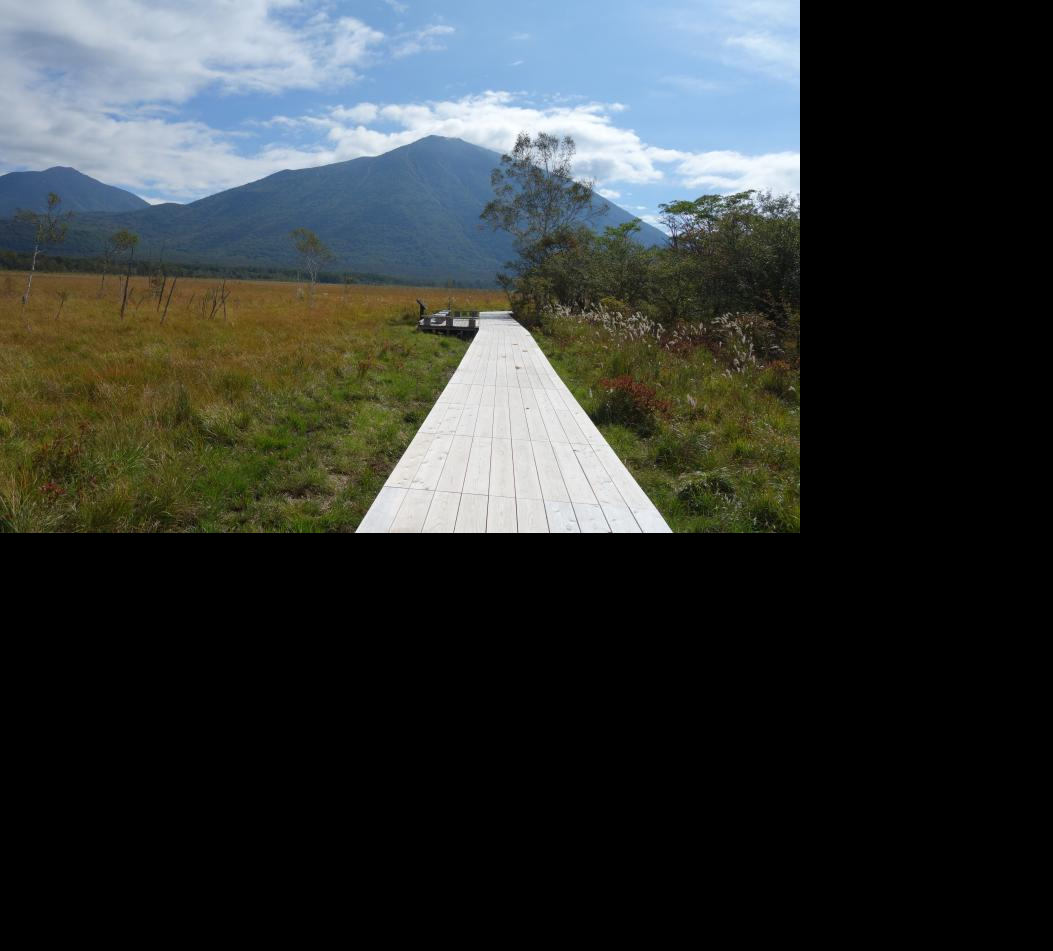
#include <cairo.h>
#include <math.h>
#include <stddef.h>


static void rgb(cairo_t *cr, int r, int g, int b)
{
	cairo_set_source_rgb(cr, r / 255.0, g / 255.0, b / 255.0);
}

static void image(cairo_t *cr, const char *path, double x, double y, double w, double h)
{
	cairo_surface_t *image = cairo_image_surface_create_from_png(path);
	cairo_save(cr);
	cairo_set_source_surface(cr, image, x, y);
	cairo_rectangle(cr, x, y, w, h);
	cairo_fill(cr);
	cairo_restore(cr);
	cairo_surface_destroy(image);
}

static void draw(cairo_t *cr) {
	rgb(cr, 0, 0, 0);
	cairo_paint(cr);
	image(cr, "image0.png", 0, 0, 800, 533);
}

int main(void) {
	cairo_surface_t *surface = cairo_image_surface_create(CAIRO_FORMAT_RGB24, 1053, 951);
	cairo_t *cr = cairo_create(surface);
	cairo_font_options_t *options = cairo_font_options_create();
	cairo_font_options_set_hint_metrics(options, CAIRO_HINT_METRICS_OFF);
	cairo_font_options_set_hint_style(options, CAIRO_HINT_STYLE_NONE);
	cairo_set_font_options(cr, options);
	cairo_set_miter_limit(cr, 4);
	draw(cr);
	cairo_surface_write_to_png(surface, "render.png");
	cairo_font_options_destroy(options);
	cairo_destroy(cr);
	cairo_surface_destroy(surface);
	return 0;
}
